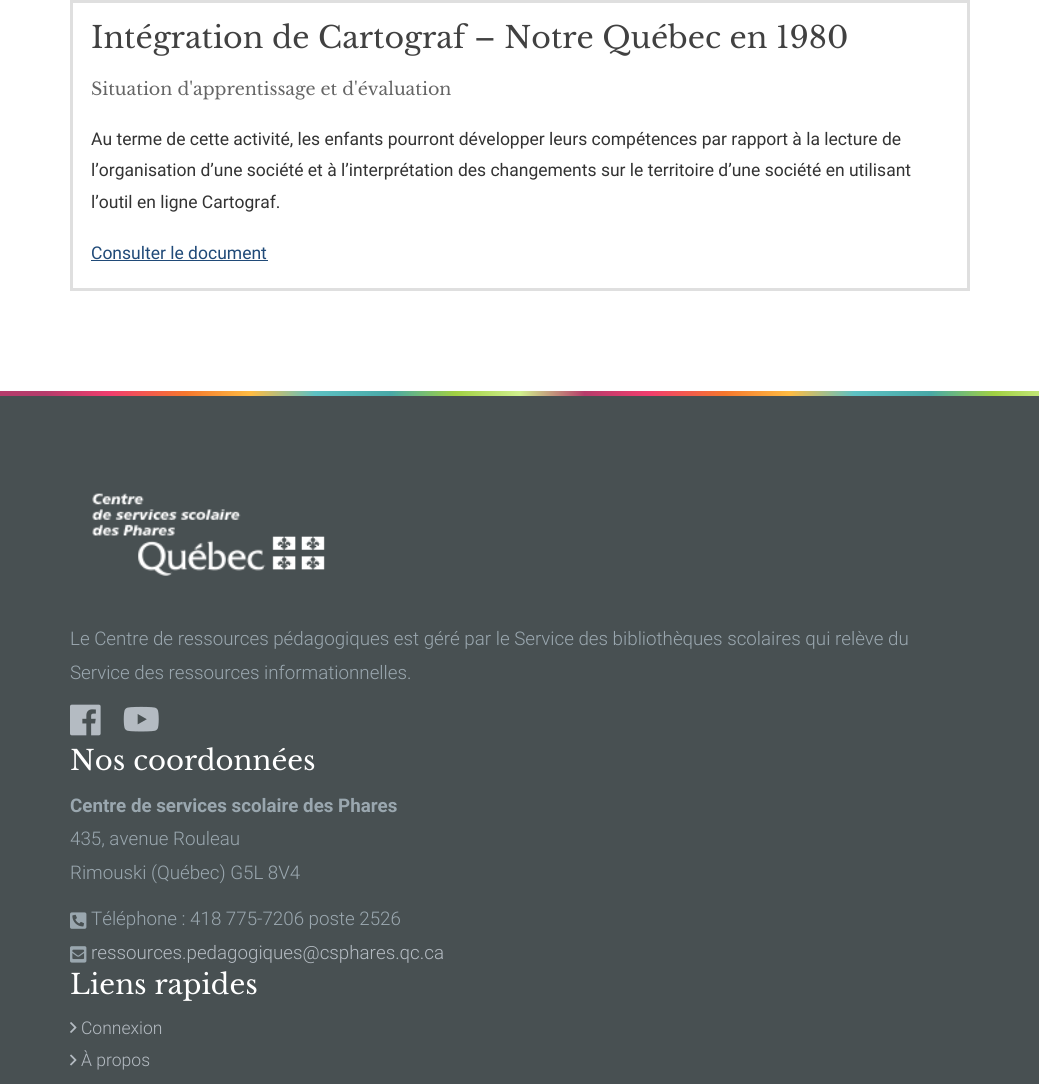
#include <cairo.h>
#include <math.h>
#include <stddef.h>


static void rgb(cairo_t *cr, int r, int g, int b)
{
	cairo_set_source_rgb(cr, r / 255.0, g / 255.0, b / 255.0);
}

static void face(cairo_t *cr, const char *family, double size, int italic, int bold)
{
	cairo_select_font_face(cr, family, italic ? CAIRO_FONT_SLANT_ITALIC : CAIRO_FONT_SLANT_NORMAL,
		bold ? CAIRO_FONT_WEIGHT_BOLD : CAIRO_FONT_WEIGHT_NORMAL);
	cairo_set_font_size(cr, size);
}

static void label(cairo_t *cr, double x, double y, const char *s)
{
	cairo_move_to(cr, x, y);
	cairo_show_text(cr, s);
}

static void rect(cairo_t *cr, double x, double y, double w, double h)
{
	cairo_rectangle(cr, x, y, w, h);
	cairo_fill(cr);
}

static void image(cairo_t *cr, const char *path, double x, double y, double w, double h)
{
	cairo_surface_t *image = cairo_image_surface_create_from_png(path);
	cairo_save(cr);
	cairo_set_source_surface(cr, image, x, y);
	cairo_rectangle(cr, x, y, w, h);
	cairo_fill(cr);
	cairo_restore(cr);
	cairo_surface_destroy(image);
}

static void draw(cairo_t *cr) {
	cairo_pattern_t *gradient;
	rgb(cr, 255, 255, 255);
	cairo_paint(cr);
	cairo_rectangle(cr, 71.5, 1.5, 897, 288);
	rgb(cr, 223, 223, 223);
	cairo_set_line_width(cr, 3);
	cairo_stroke(cr);
	face(cr, "Libre Baskerville", 30, 0, 0);
	rgb(cr, 65, 65, 65);
	label(cr, 91, 48, "Intégration de Cartograf – Notre Québec en 1980");
	face(cr, "Libre Baskerville", 17.5, 0, 0);
	rgb(cr, 101, 101, 101);
	label(cr, 91, 95, "Situation d'apprentissage et d'évaluation");
	face(cr, "Roboto", 17.5, 0, 0);
	rgb(cr, 51, 51, 51);
	label(cr, 91, 145, "Au terme de cette activité, les enfants pourront développer leurs compétences par rapport à la lecture de");
	label(cr, 91, 176, "l’organisation d’une société et à l’interprétation des changements sur le territoire d’une société en utilisant");
	label(cr, 91, 208, "l’outil en ligne Cartograf.");
	rgb(cr, 32, 74, 120);
	label(cr, 91, 259, "Consulter le document");
	rect(cr, 91, 260, 177, 1);
	gradient = cairo_pattern_create_linear(-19, 394, 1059, 394);
	cairo_pattern_add_color_stop_rgba(gradient, 0.06, 0.714, 0.235, 0.42, 1);
	cairo_pattern_add_color_stop_rgba(gradient, 0.12, 0.945, 0.239, 0.427, 1);
	cairo_pattern_add_color_stop_rgba(gradient, 0.19, 0.961, 0.467, 0.176, 1);
	cairo_pattern_add_color_stop_rgba(gradient, 0.25, 1, 0.733, 0.259, 1);
	cairo_pattern_add_color_stop_rgba(gradient, 0.31, 0.365, 0.757, 0.765, 1);
	cairo_pattern_add_color_stop_rgba(gradient, 0.38, 0.282, 0.659, 0.655, 1);
	cairo_pattern_add_color_stop_rgba(gradient, 0.44, 0.631, 0.816, 0.259, 1);
	cairo_pattern_add_color_stop_rgba(gradient, 0.5, 0.816, 0.941, 0.553, 1);
	cairo_pattern_add_color_stop_rgba(gradient, 0.56, 0.714, 0.235, 0.42, 1);
	cairo_pattern_add_color_stop_rgba(gradient, 0.62, 0.945, 0.239, 0.427, 1);
	cairo_pattern_add_color_stop_rgba(gradient, 0.69, 0.961, 0.467, 0.176, 1);
	cairo_pattern_add_color_stop_rgba(gradient, 0.75, 1, 0.733, 0.259, 1);
	cairo_pattern_add_color_stop_rgba(gradient, 0.81, 0.365, 0.757, 0.765, 1);
	cairo_pattern_add_color_stop_rgba(gradient, 0.88, 0.282, 0.659, 0.655, 1);
	cairo_pattern_add_color_stop_rgba(gradient, 0.94, 0.631, 0.816, 0.259, 1);
	cairo_pattern_add_color_stop_rgba(gradient, 1, 0.816, 0.941, 0.553, 1);
	cairo_set_source(cr, gradient);
	cairo_pattern_destroy(gradient);
	rect(cr, 0, 391, 1039, 5);
	rgb(cr, 72, 80, 82);
	rect(cr, 0, 396, 1039, 688);
	image(cr, "image0.png", 92, 493, 233, 83);
	face(cr, "Roboto Light", 18.75, 0, 0);
	rgb(cr, 154, 167, 175);
	label(cr, 70, 645, "Le Centre de ressources pédagogiques est géré par le Service des bibliothèques scolaires qui relève du");
	label(cr, 70, 679, "Service des ressources informationnelles.");
	image(cr, "image1.png", 70, 704, 31, 32);
	image(cr, "image2.png", 123, 706, 36, 26);
	face(cr, "Libre Baskerville", 27.5, 0, 0);
	rgb(cr, 255, 255, 255);
	label(cr, 70, 770, "Nos coordonnées");
	face(cr, "Roboto", 18.75, 0, 1);
	rgb(cr, 154, 167, 175);
	label(cr, 70, 812, "Centre de services scolaire des Phares");
	face(cr, "Roboto Light", 18.75, 0, 0);
	label(cr, 70, 845, "435, avenue Rouleau");
	label(cr, 70, 879, "Rimouski (Québec) G5L 8V4");
	image(cr, "image3.png", 70, 912, 17, 17);
	label(cr, 91, 925, "Téléphone : 418 775-7206 poste 2526");
	image(cr, "image4.png", 70, 946, 17, 17);
	rgb(cr, 180, 187, 194);
	label(cr, 91, 959, "ressources.pedagogiques@csphares.qc.ca");
	face(cr, "Libre Baskerville", 27.5, 0, 0);
	rgb(cr, 255, 255, 255);
	label(cr, 70, 994, "Liens rapides");
	image(cr, "image5.png", 70, 1022, 7, 11);
	face(cr, "Roboto Light", 17.5, 0, 0);
	rgb(cr, 180, 187, 194);
	label(cr, 81, 1034, "Connexion");
	image(cr, "image6.png", 70, 1054, 7, 12);
	label(cr, 81, 1066, "À propos");
}

int main(void) {
	cairo_surface_t *surface = cairo_image_surface_create(CAIRO_FORMAT_RGB24, 1039, 1084);
	cairo_t *cr = cairo_create(surface);
	cairo_font_options_t *options = cairo_font_options_create();
	cairo_font_options_set_hint_metrics(options, CAIRO_HINT_METRICS_OFF);
	cairo_font_options_set_hint_style(options, CAIRO_HINT_STYLE_NONE);
	cairo_set_font_options(cr, options);
	cairo_set_miter_limit(cr, 4);
	draw(cr);
	cairo_surface_write_to_png(surface, "render.png");
	cairo_font_options_destroy(options);
	cairo_destroy(cr);
	cairo_surface_destroy(surface);
	return 0;
}
